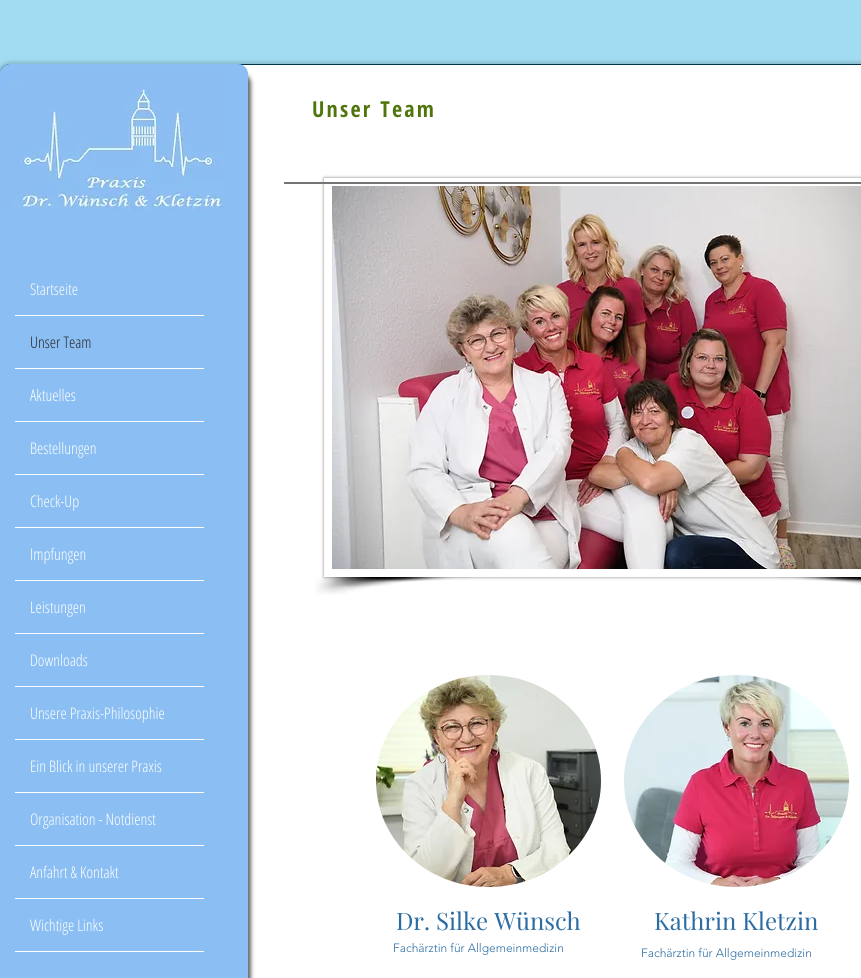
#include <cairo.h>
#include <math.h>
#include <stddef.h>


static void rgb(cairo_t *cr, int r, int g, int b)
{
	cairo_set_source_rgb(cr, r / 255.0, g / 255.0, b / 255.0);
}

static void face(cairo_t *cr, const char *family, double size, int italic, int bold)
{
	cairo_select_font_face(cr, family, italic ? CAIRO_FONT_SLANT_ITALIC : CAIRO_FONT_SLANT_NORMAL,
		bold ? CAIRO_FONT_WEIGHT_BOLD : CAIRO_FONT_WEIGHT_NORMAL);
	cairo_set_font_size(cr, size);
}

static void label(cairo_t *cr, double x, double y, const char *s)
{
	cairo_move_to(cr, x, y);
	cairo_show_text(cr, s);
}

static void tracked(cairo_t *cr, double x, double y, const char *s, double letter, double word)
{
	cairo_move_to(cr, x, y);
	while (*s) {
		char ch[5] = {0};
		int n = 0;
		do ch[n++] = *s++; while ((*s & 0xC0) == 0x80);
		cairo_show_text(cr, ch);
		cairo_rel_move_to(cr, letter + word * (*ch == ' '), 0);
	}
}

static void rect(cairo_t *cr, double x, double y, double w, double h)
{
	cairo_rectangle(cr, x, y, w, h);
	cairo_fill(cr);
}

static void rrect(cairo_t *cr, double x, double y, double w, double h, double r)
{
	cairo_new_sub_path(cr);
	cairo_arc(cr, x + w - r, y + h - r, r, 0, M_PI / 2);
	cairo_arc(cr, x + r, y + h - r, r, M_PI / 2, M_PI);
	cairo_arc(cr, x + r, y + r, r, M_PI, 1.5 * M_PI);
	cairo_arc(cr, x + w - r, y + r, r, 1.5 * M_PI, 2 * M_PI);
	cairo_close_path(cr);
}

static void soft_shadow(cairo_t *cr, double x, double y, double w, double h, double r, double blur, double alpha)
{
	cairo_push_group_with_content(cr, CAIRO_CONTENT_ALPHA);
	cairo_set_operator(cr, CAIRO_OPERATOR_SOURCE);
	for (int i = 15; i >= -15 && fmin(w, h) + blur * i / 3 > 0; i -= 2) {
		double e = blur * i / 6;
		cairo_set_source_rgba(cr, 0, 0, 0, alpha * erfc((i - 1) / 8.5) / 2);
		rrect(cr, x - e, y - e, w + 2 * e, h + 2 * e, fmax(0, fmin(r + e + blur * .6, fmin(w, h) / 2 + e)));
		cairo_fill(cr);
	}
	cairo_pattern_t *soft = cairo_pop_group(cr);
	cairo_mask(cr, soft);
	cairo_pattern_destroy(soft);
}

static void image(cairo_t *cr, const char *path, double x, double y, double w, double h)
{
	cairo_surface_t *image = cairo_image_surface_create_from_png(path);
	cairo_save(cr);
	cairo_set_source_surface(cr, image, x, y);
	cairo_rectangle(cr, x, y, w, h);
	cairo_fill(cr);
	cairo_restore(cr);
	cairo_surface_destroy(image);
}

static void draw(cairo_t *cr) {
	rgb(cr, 161, 220, 242);
	cairo_paint(cr);
	rgb(cr, 0, 0, 0);
	soft_shadow(cr, -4, 62, 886, 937, 15, 2, 0.17);
	rgb(cr, 255, 255, 255);
	rrect(cr, 0.5, 64.5, 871, 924, 9.5);
	cairo_fill_preserve(cr);
	rgb(cr, 0, 52, 72);
	cairo_set_line_width(cr, 1);
	cairo_stroke(cr);
	rgb(cr, 0, 0, 0);
	soft_shadow(cr, 3, 73, 248, 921, 10, 2, 0.6);
	rgb(cr, 139, 191, 243);
	rrect(cr, 0, 64, 248, 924, 10);
	cairo_fill(cr);
	image(cr, "image0.png", 0, 71, 224, 140);
	cairo_save(cr);
	cairo_set_fill_rule(cr, CAIRO_FILL_RULE_EVEN_ODD);
	cairo_new_path(cr);
	cairo_move_to(cr, 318, 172);
	cairo_line_to(cr, 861, 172);
	cairo_line_to(cr, 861, 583);
	cairo_line_to(cr, 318, 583);
	cairo_close_path(cr);
	cairo_move_to(cr, 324, 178);
	cairo_line_to(cr, 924, 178);
	cairo_line_to(cr, 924, 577);
	cairo_line_to(cr, 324, 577);
	cairo_close_path(cr);
	cairo_clip(cr);
	rgb(cr, 0, 0, 0);
	soft_shadow(cr, 324, 178, 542, 399, 0, 1.5, 0.5);
	cairo_restore(cr);
	rgb(cr, 116, 117, 117);
	rect(cr, 284, 182, 577, 2);
	rgb(cr, 255, 255, 255);
	rect(cr, 15, 315, 189, 1);
	face(cr, "Open Sans Condensed Light", 16, 0, 0);
	label(cr, 30, 295, "Startseite");
	rect(cr, 15, 368, 189, 1);
	rgb(cr, 42, 42, 42);
	label(cr, 30, 348, "Unser Team");
	rgb(cr, 255, 255, 255);
	rect(cr, 15, 421, 189, 1);
	label(cr, 30, 401, "Aktuelles");
	rect(cr, 15, 474, 189, 1);
	label(cr, 30, 454, "Bestellungen");
	rect(cr, 15, 527, 189, 1);
	label(cr, 30, 507, "Check-Up");
	rect(cr, 15, 580, 189, 1);
	label(cr, 30, 560, "Impfungen");
	rect(cr, 15, 633, 189, 1);
	label(cr, 30, 613, "Leistungen");
	rect(cr, 15, 686, 189, 1);
	label(cr, 30, 666, "Downloads");
	rect(cr, 15, 739, 189, 1);
	label(cr, 30, 719, "Unsere Praxis-Philosophie");
	rect(cr, 15, 792, 189, 1);
	label(cr, 30, 772, "Ein Blick in unserer Praxis");
	rect(cr, 15, 845, 189, 1);
	label(cr, 30, 825, "Organisation - Notdienst");
	rect(cr, 15, 898, 189, 1);
	label(cr, 30, 878, "Anfahrt & Kontakt");
	rect(cr, 15, 951, 189, 1);
	label(cr, 30, 931, "Wichtige Links");
	face(cr, "Open Sans Condensed", 22, 0, 1);
	rgb(cr, 80, 117, 12);
	tracked(cr, 312, 117, "Unser Team", 2.25, 0);
	image(cr, "image1.png", 332, 186, 529, 383);
	image(cr, "image2.png", 315, 577, 154, 18);
	image(cr, "image3.png", 779, 577, 82, 8);
	image(cr, "image4.png", 376, 675, 225, 212);
	face(cr, "Playfair Display", 24, 0, 0);
	rgb(cr, 43, 108, 163);
	label(cr, 396, 930, "Dr. Silke Wünsch");
	face(cr, "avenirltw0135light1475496 Light", 12, 0, 0);
	label(cr, 393, 952, "Fachärztin für Allgemeinmedizin");
	image(cr, "image5.png", 624, 675, 225, 212);
	face(cr, "Playfair Display", 24, 0, 0);
	label(cr, 654, 930, "Kathrin Kletzin");
	face(cr, "avenirltw0135light1475496 Light", 12, 0, 0);
	label(cr, 641, 957, "Fachärztin für Allgemeinmedizin");
}

int main(void) {
	cairo_surface_t *surface = cairo_image_surface_create(CAIRO_FORMAT_RGB24, 861, 978);
	cairo_t *cr = cairo_create(surface);
	cairo_font_options_t *options = cairo_font_options_create();
	cairo_font_options_set_hint_metrics(options, CAIRO_HINT_METRICS_OFF);
	cairo_font_options_set_hint_style(options, CAIRO_HINT_STYLE_NONE);
	cairo_set_font_options(cr, options);
	cairo_set_miter_limit(cr, 4);
	draw(cr);
	cairo_surface_write_to_png(surface, "render.png");
	cairo_font_options_destroy(options);
	cairo_destroy(cr);
	cairo_surface_destroy(surface);
	return 0;
}
